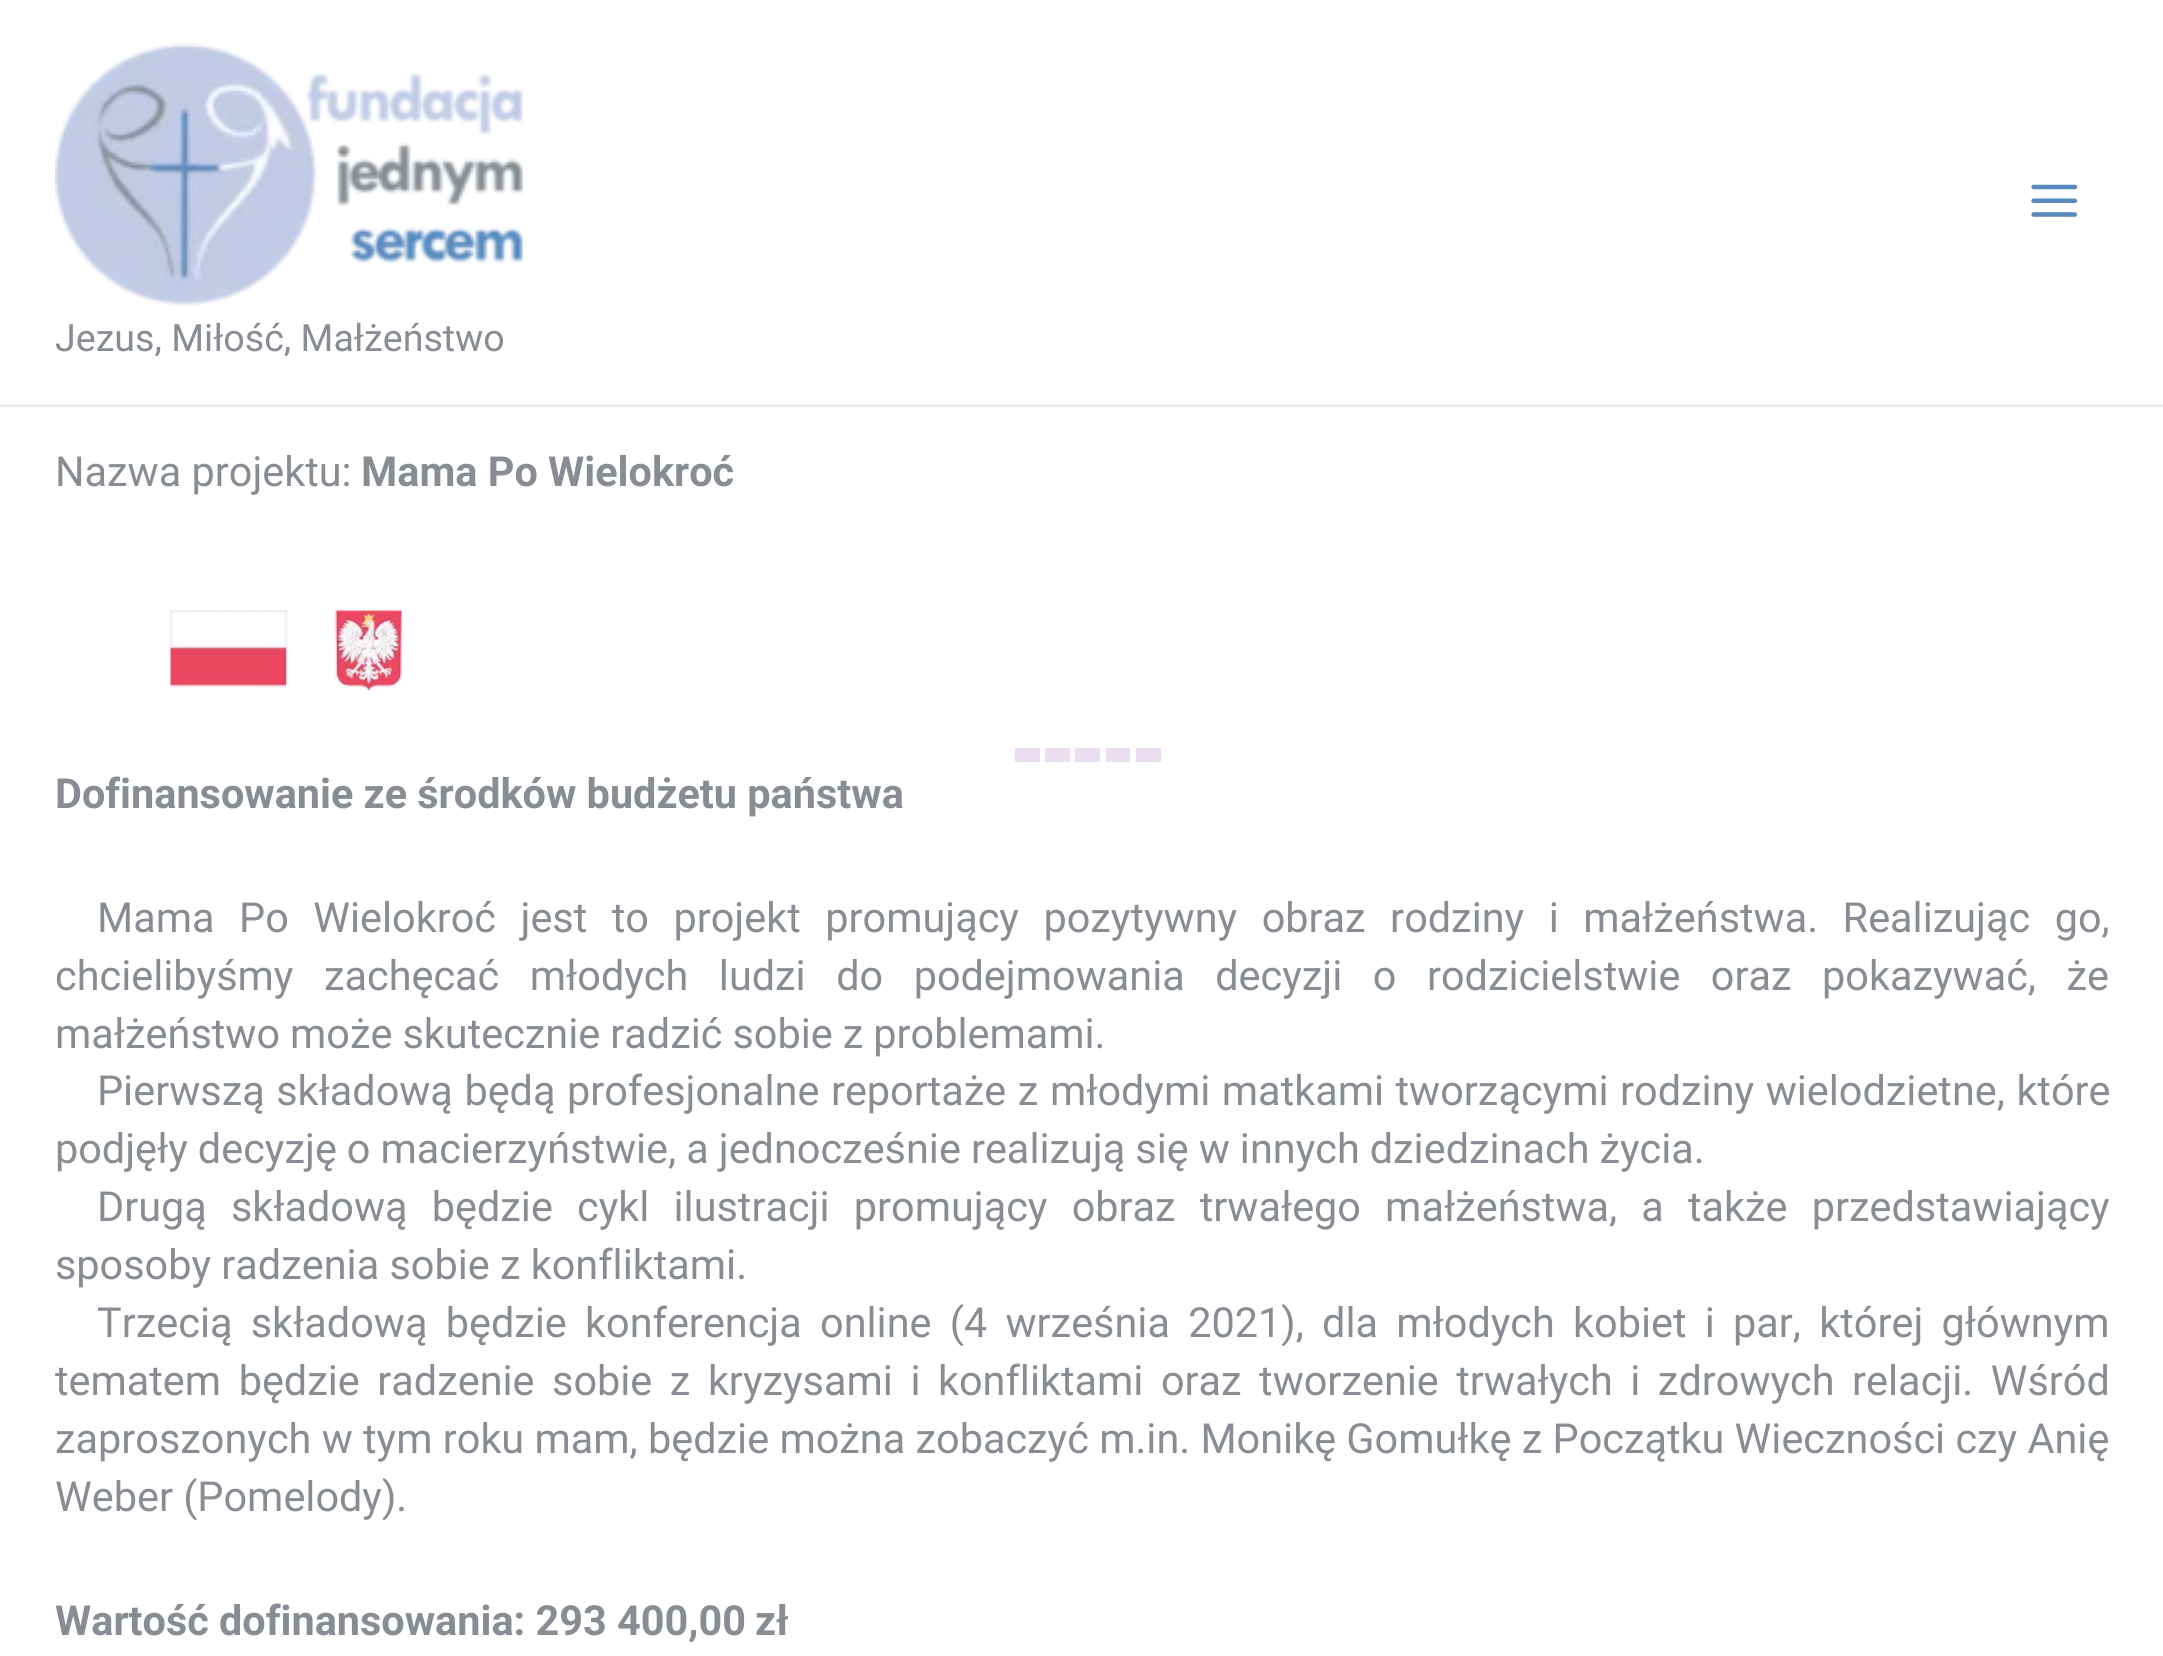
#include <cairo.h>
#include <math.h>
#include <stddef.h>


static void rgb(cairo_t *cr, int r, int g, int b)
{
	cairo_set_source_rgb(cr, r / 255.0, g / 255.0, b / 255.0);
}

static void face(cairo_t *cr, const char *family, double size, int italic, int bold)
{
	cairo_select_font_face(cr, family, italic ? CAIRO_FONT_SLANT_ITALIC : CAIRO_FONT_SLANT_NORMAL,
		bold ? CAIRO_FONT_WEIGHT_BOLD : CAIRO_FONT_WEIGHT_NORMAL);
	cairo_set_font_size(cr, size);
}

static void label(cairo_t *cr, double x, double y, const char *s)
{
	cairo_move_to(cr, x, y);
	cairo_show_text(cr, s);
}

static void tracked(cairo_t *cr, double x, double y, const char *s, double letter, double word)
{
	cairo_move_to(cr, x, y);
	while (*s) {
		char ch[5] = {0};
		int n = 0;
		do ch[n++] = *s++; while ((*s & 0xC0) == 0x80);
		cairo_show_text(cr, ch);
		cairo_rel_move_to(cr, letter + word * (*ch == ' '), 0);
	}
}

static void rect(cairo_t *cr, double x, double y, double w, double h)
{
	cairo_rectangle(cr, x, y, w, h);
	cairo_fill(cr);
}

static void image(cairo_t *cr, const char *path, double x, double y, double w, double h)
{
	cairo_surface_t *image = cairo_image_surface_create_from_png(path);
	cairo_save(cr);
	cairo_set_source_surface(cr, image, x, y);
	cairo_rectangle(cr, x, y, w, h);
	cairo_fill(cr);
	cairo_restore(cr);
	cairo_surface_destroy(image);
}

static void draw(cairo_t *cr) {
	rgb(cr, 255, 255, 255);
	cairo_paint(cr);
	rgb(cr, 238, 238, 238);
	rect(cr, 0, 404, 2163, 3);
	image(cr, "image0.png", 2031, 184, 47, 33);
	image(cr, "image1.png", 55, 43, 468, 263);
	face(cr, "Roboto", 37.6, 0, 0);
	rgb(cr, 136, 141, 147);
	label(cr, 55, 351, "Jezus, Miłość, Małżeństwo");
	face(cr, "Roboto", 41.4, 0, 0);
	label(cr, 55, 486, "Nazwa projektu:");
	face(cr, "Roboto", 41.4, 0, 1);
	label(cr, 361, 486, "Mama Po Wielokroć");
	image(cr, "image2.png", 170, 610, 232, 81);
	label(cr, 55, 808, "Dofinansowanie ze środków budżetu państwa");
	face(cr, "Roboto", 41.4, 0, 0);
	tracked(cr, 97, 932, "Mama Po Wielokroć jest to projekt promujący pozytywny obraz rodziny i małżeństwa. Realizując go,", 0, 14.25);
	tracked(cr, 55, 990, "chcielibyśmy zachęcać młodych ludzi do podejmowania decyzji o rodzicielstwie oraz pokazywać, że", 0, 20.25);
	tracked(cr, 55, 1048, "małżeństwo może skutecznie radzić sobie z problemami.", 0, -0.25);
	tracked(cr, 97, 1105, "Pierwszą składową będą profesjonalne reportaże z młodymi matkami tworzącymi rodziny wielodzietne, które", 0, 1.25);
	tracked(cr, 55, 1163, "podjęły decyzję o macierzyństwie, a jednocześnie realizują się w innych dziedzinach życia.", 0, -0.25);
	tracked(cr, 97, 1221, "Drugą składową będzie cykl ilustracji promujący obraz trwałego małżeństwa, a także przedstawiający", 0, 13.9);
	label(cr, 55, 1279, "sposoby radzenia sobie z konfliktami.");
	tracked(cr, 97, 1337, "Trzecią składową będzie konferencja online (4 września 2021), dla młodych kobiet i par, której głównym", 0, 8);
	tracked(cr, 55, 1395, "tematem będzie radzenie sobie z kryzysami i konfliktami oraz tworzenie trwałych i zdrowych relacji. Wśród", 0, 7.25);
	label(cr, 55, 1453, "zaproszonych w tym roku mam, będzie można zobaczyć m.in. Monikę Gomułkę z Początku Wieczności czy Anię");
	label(cr, 55, 1511, "Weber (Pomelody).");
	face(cr, "Roboto", 41.4, 0, 1);
	label(cr, 55, 1635, "Wartość dofinansowania: 293 400,00");
	label(cr, 755, 1635, "zł");
	rgb(cr, 235, 222, 240);
	rect(cr, 1015, 748, 25, 14);
	rect(cr, 1045, 748, 25, 14);
	rect(cr, 1075, 748, 25, 14);
	rect(cr, 1106, 748, 24, 14);
	rect(cr, 1136, 748, 25, 14);
}

int main(void) {
	cairo_surface_t *surface = cairo_image_surface_create(CAIRO_FORMAT_RGB24, 2163, 1656);
	cairo_t *cr = cairo_create(surface);
	cairo_font_options_t *options = cairo_font_options_create();
	cairo_font_options_set_hint_metrics(options, CAIRO_HINT_METRICS_OFF);
	cairo_font_options_set_hint_style(options, CAIRO_HINT_STYLE_NONE);
	cairo_set_font_options(cr, options);
	cairo_set_miter_limit(cr, 4);
	draw(cr);
	cairo_surface_write_to_png(surface, "render.png");
	cairo_font_options_destroy(options);
	cairo_destroy(cr);
	cairo_surface_destroy(surface);
	return 0;
}
